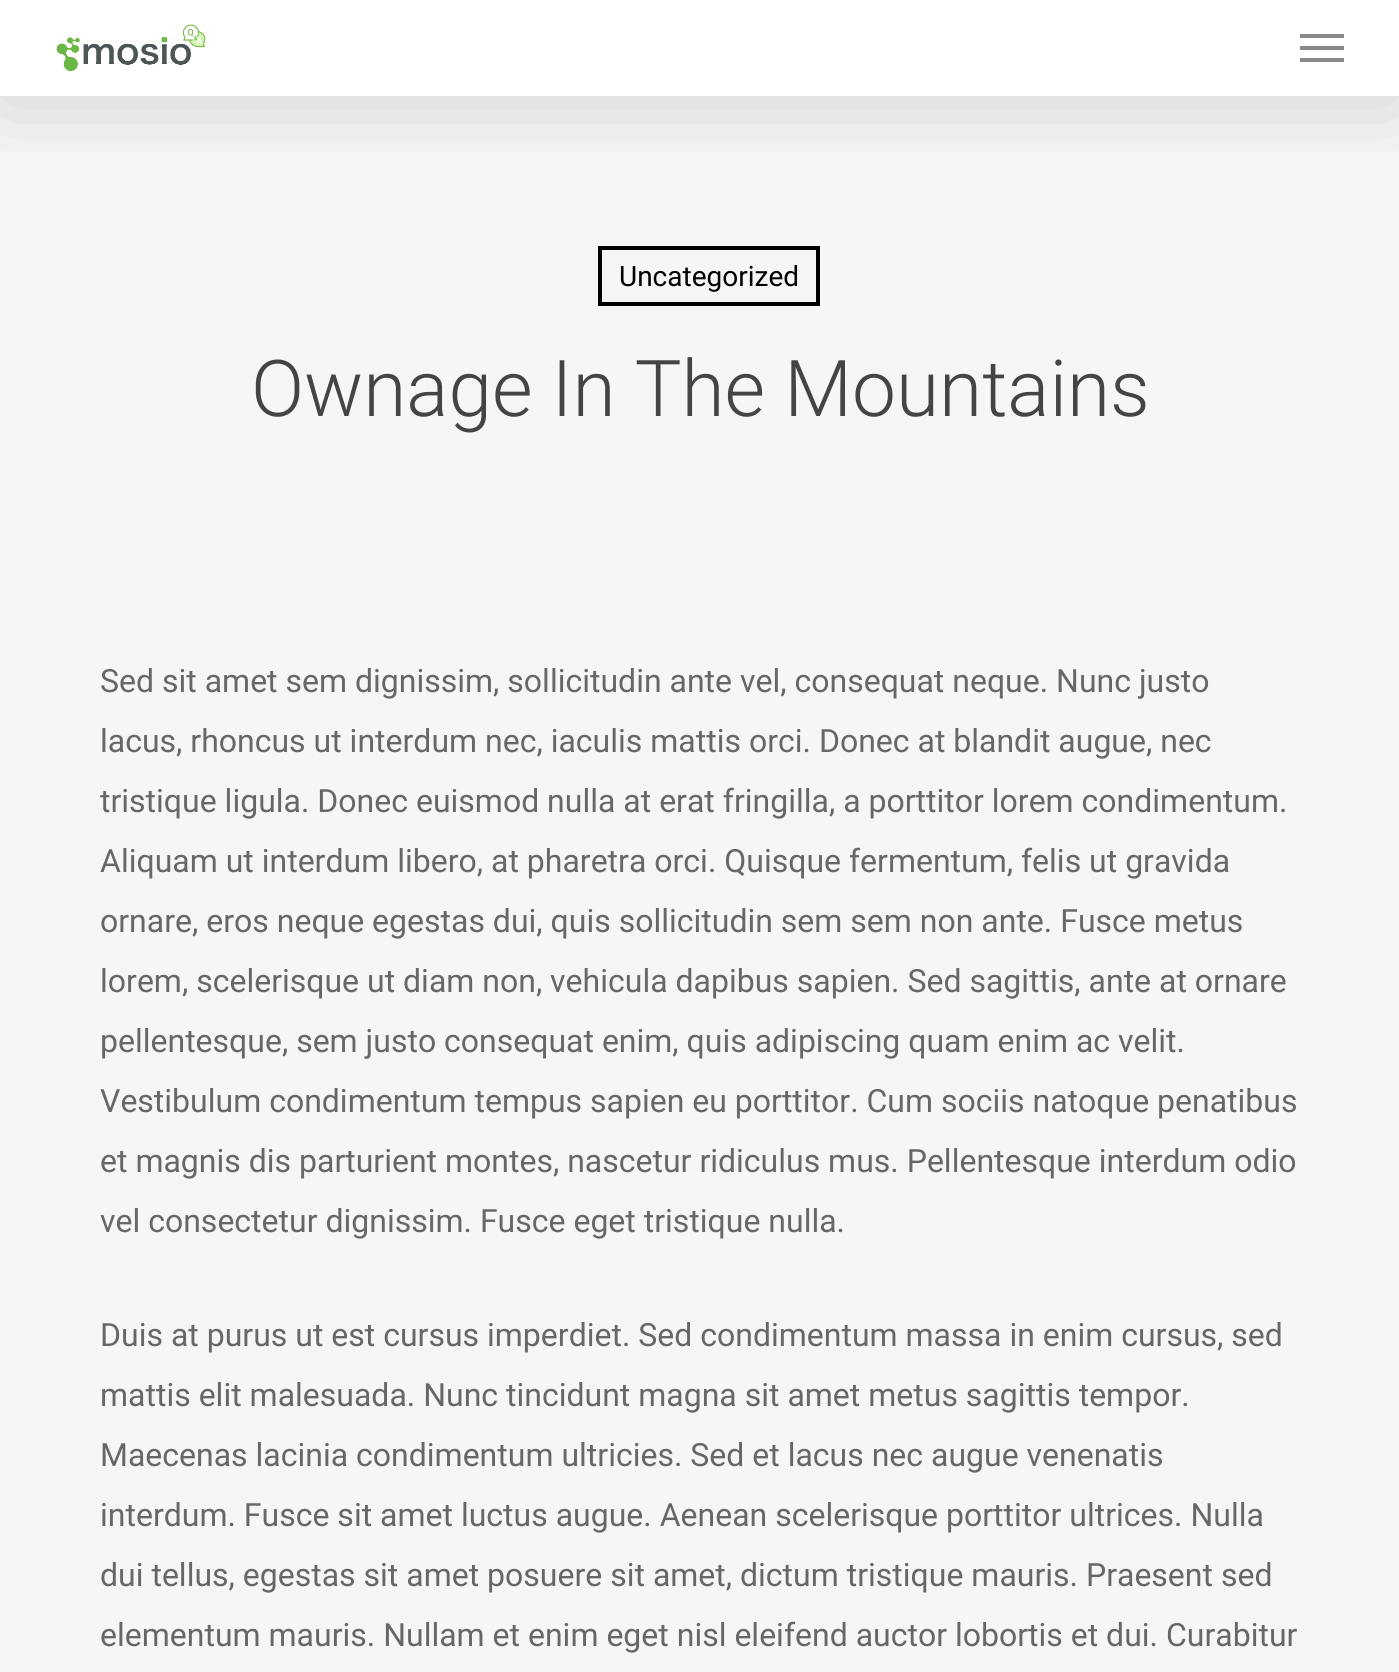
#include <cairo.h>
#include <math.h>
#include <stddef.h>


static void rgb(cairo_t *cr, int r, int g, int b)
{
	cairo_set_source_rgb(cr, r / 255.0, g / 255.0, b / 255.0);
}

static void face(cairo_t *cr, const char *family, double size, int italic, int bold)
{
	cairo_select_font_face(cr, family, italic ? CAIRO_FONT_SLANT_ITALIC : CAIRO_FONT_SLANT_NORMAL,
		bold ? CAIRO_FONT_WEIGHT_BOLD : CAIRO_FONT_WEIGHT_NORMAL);
	cairo_set_font_size(cr, size);
}

static void label(cairo_t *cr, double x, double y, const char *s)
{
	cairo_move_to(cr, x, y);
	cairo_show_text(cr, s);
}

static void rect(cairo_t *cr, double x, double y, double w, double h)
{
	cairo_rectangle(cr, x, y, w, h);
	cairo_fill(cr);
}

static void rrect(cairo_t *cr, double x, double y, double w, double h, double r)
{
	cairo_new_sub_path(cr);
	cairo_arc(cr, x + w - r, y + h - r, r, 0, M_PI / 2);
	cairo_arc(cr, x + r, y + h - r, r, M_PI / 2, M_PI);
	cairo_arc(cr, x + r, y + r, r, M_PI, 1.5 * M_PI);
	cairo_arc(cr, x + w - r, y + r, r, 1.5 * M_PI, 2 * M_PI);
	cairo_close_path(cr);
}

static void soft_shadow(cairo_t *cr, double x, double y, double w, double h, double r, double blur, double alpha)
{
	cairo_push_group_with_content(cr, CAIRO_CONTENT_ALPHA);
	cairo_set_operator(cr, CAIRO_OPERATOR_SOURCE);
	for (int i = 15; i >= -15 && fmin(w, h) + blur * i / 3 > 0; i -= 2) {
		double e = blur * i / 6;
		cairo_set_source_rgba(cr, 0, 0, 0, alpha * erfc((i - 1) / 8.5) / 2);
		rrect(cr, x - e, y - e, w + 2 * e, h + 2 * e, fmax(0, fmin(r + e + blur * .6, fmin(w, h) / 2 + e)));
		cairo_fill(cr);
	}
	cairo_pattern_t *soft = cairo_pop_group(cr);
	cairo_mask(cr, soft);
	cairo_pattern_destroy(soft);
}

static void image(cairo_t *cr, const char *path, double x, double y, double w, double h)
{
	cairo_surface_t *image = cairo_image_surface_create_from_png(path);
	cairo_save(cr);
	cairo_set_source_surface(cr, image, x, y);
	cairo_rectangle(cr, x, y, w, h);
	cairo_fill(cr);
	cairo_restore(cr);
	cairo_surface_destroy(image);
}

static void draw(cairo_t *cr) {
	rgb(cr, 255, 255, 255);
	cairo_paint(cr);
	rgb(cr, 246, 246, 246);
	rect(cr, 0, 96, 1399, 1576);
	cairo_save(cr);
	cairo_rectangle(cr, 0, 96, 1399, 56);
	cairo_clip(cr);
	rgb(cr, 0, 0, 0);
	soft_shadow(cr, 0, 6, 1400, 96, 0, 45, 0.15);
	cairo_restore(cr);
	image(cr, "image0.png", 56, 24, 150, 48);
	rgb(cr, 136, 136, 136);
	rect(cr, 1300, 34, 44, 4);
	rect(cr, 1300, 58, 44, 4);
	rect(cr, 1300, 46, 44, 4);
	cairo_rectangle(cr, 600, 248, 218, 56);
	rgb(cr, 0, 0, 0);
	cairo_set_line_width(cr, 4);
	cairo_stroke(cr);
	face(cr, "Roboto", 28, 0, 0);
	label(cr, 619, 286, "Uncategorized");
	face(cr, "Roboto Light", 78.4, 0, 0);
	rgb(cr, 68, 68, 68);
	label(cr, 251, 416, "Ownage In The Mountains");
	face(cr, "Roboto", 32, 0, 0);
	rgb(cr, 103, 103, 103);
	label(cr, 100, 692, "Sed sit amet sem dignissim, sollicitudin ante vel, consequat neque. Nunc justo");
	label(cr, 100, 752, "lacus, rhoncus ut interdum nec, iaculis mattis orci. Donec at blandit augue, nec");
	label(cr, 100, 812, "tristique ligula. Donec euismod nulla at erat fringilla, a porttitor lorem condimentum.");
	label(cr, 100, 872, "Aliquam ut interdum libero, at pharetra orci. Quisque fermentum, felis ut gravida");
	label(cr, 100, 932, "ornare, eros neque egestas dui, quis sollicitudin sem sem non ante. Fusce metus");
	label(cr, 100, 992, "lorem, scelerisque ut diam non, vehicula dapibus sapien. Sed sagittis, ante at ornare");
	label(cr, 100, 1052, "pellentesque, sem justo consequat enim, quis adipiscing quam enim ac velit.");
	label(cr, 100, 1112, "Vestibulum condimentum tempus sapien eu porttitor. Cum sociis natoque penatibus");
	label(cr, 100, 1172, "et magnis dis parturient montes, nascetur ridiculus mus. Pellentesque interdum odio");
	label(cr, 100, 1232, "vel consectetur dignissim. Fusce eget tristique nulla.");
	label(cr, 100, 1346, "Duis at purus ut est cursus imperdiet. Sed condimentum massa in enim cursus, sed");
	label(cr, 100, 1406, "mattis elit malesuada. Nunc tincidunt magna sit amet metus sagittis tempor.");
	label(cr, 100, 1466, "Maecenas lacinia condimentum ultricies. Sed et lacus nec augue venenatis");
	label(cr, 100, 1526, "interdum. Fusce sit amet luctus augue. Aenean scelerisque porttitor ultrices. Nulla");
	label(cr, 100, 1586, "dui tellus, egestas sit amet posuere sit amet, dictum tristique mauris. Praesent sed");
	label(cr, 100, 1646, "elementum mauris. Nullam et enim eget nisl eleifend auctor lobortis et dui. Curabitur");
}

int main(void) {
	cairo_surface_t *surface = cairo_image_surface_create(CAIRO_FORMAT_RGB24, 1399, 1672);
	cairo_t *cr = cairo_create(surface);
	cairo_font_options_t *options = cairo_font_options_create();
	cairo_font_options_set_hint_metrics(options, CAIRO_HINT_METRICS_OFF);
	cairo_font_options_set_hint_style(options, CAIRO_HINT_STYLE_NONE);
	cairo_set_font_options(cr, options);
	cairo_set_miter_limit(cr, 4);
	draw(cr);
	cairo_surface_write_to_png(surface, "render.png");
	cairo_font_options_destroy(options);
	cairo_destroy(cr);
	cairo_surface_destroy(surface);
	return 0;
}
